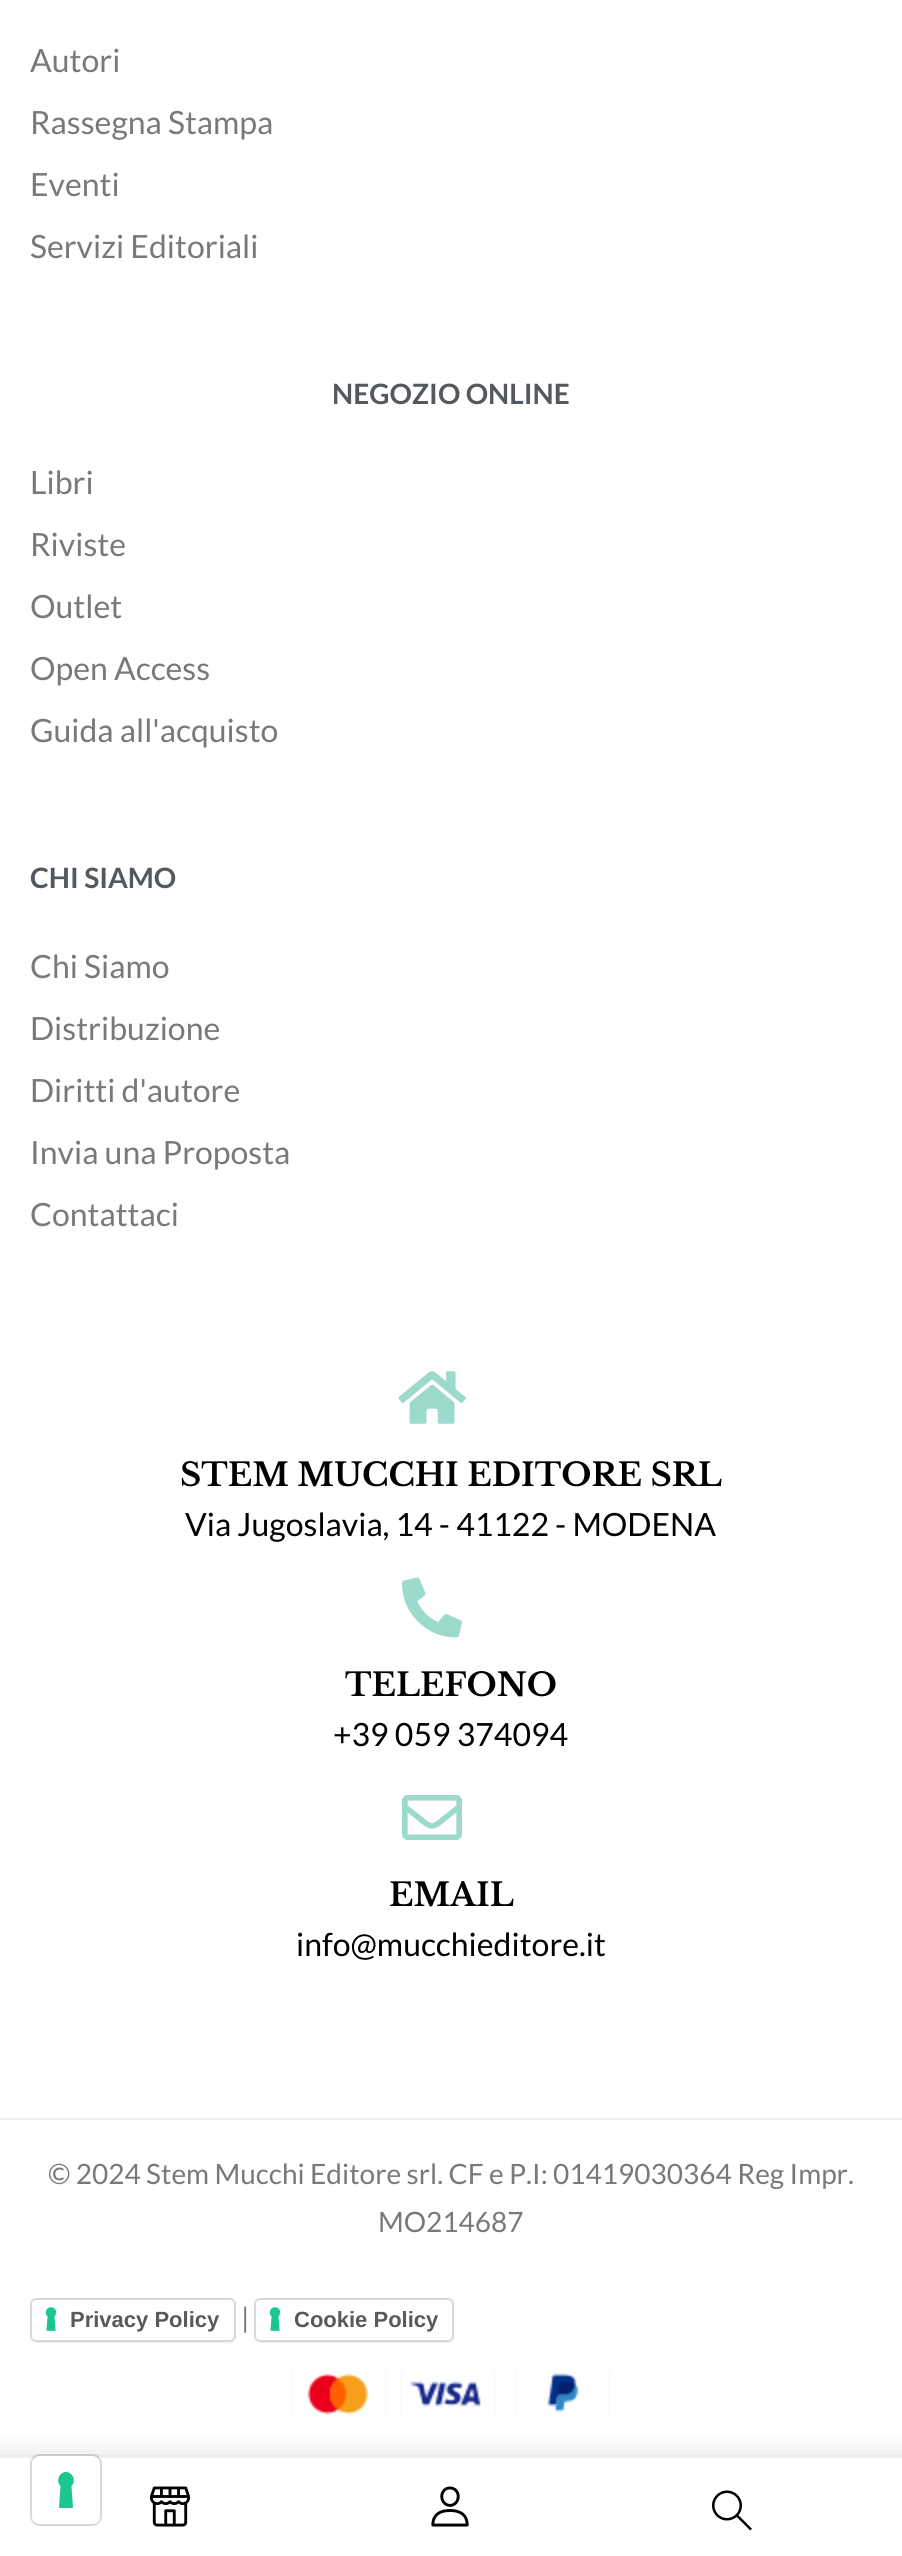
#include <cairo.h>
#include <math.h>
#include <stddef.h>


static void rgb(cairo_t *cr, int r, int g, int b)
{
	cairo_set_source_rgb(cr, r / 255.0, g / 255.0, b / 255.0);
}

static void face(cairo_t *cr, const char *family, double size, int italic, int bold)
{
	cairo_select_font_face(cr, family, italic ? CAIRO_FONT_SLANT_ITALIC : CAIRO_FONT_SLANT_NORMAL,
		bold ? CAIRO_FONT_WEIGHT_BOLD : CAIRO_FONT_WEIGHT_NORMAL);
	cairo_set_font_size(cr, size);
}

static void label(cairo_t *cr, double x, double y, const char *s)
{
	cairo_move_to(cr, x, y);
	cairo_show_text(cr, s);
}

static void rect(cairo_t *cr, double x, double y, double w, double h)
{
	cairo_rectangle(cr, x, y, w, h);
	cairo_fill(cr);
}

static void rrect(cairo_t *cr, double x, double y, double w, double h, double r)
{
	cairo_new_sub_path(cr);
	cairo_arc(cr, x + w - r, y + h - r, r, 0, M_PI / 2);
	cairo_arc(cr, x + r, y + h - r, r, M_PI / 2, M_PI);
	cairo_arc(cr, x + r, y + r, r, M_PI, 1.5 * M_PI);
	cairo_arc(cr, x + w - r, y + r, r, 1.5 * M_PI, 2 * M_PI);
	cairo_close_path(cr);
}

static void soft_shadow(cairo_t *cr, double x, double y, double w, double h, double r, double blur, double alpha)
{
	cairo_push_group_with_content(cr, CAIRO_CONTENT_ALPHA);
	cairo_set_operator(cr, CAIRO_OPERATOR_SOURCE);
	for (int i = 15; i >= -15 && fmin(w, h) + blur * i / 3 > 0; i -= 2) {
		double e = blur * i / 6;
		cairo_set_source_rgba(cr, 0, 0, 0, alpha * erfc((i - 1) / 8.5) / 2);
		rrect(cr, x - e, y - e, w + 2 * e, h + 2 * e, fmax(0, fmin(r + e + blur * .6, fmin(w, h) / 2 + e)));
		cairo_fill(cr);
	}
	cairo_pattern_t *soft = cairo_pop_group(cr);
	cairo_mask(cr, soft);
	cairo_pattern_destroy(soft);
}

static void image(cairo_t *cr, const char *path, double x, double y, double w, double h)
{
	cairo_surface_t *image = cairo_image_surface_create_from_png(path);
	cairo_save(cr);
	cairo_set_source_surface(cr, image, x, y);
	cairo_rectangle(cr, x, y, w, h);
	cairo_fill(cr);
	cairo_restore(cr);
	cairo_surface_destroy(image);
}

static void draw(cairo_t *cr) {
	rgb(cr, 255, 255, 255);
	cairo_paint(cr);
	rgb(cr, 237, 237, 237);
	rect(cr, 0, 2118, 902, 2);
	face(cr, "Lato", 32, 0, 0);
	rgb(cr, 118, 122, 121);
	label(cr, 30, 72, "Autori");
	label(cr, 30, 134, "Rassegna Stampa");
	label(cr, 30, 196, "Eventi");
	label(cr, 30, 258, "Servizi Editoriali");
	face(cr, "Lato", 28, 0, 1);
	rgb(cr, 84, 89, 95);
	label(cr, 332, 404, "NEGOZIO ONLINE");
	face(cr, "Lato", 32, 0, 0);
	rgb(cr, 118, 122, 121);
	label(cr, 30, 494, "Libri");
	label(cr, 30, 556, "Riviste");
	label(cr, 30, 618, "Outlet");
	label(cr, 30, 680, "Open Access");
	label(cr, 30, 742, "Guida all'acquisto");
	face(cr, "Lato", 28, 0, 1);
	rgb(cr, 84, 89, 95);
	label(cr, 30, 888, "CHI SIAMO");
	face(cr, "Lato", 32, 0, 0);
	rgb(cr, 118, 122, 121);
	label(cr, 30, 978, "Chi Siamo");
	label(cr, 30, 1040, "Distribuzione");
	label(cr, 30, 1102, "Diritti d'autore");
	label(cr, 30, 1164, "Invia una Proposta");
	label(cr, 30, 1226, "Contattaci");
	image(cr, "image0.png", 398, 1371, 68, 53);
	face(cr, "Libre Baskerville", 32, 0, 1);
	rgb(cr, 0, 0, 0);
	label(cr, 180, 1486, "STEM MUCCHI EDITORE SRL");
	face(cr, "Lato", 32, 0, 0);
	label(cr, 185, 1536, "Via Jugoslavia, 14 - 41122 - MODENA");
	image(cr, "image1.png", 402, 1577, 60, 61);
	face(cr, "Libre Baskerville", 32, 0, 1);
	label(cr, 345, 1696, "TELEFONO");
	face(cr, "Lato", 32, 0, 0);
	label(cr, 333, 1746, "+39 059 374094");
	image(cr, "image2.png", 402, 1795, 60, 45);
	face(cr, "Libre Baskerville", 32, 0, 1);
	label(cr, 389, 1906, "EMAIL");
	face(cr, "Lato", 32, 0, 0);
	label(cr, 296, 1956, "info@mucchieditore.it");
	face(cr, "Lato", 28, 0, 0);
	rgb(cr, 118, 122, 121);
	label(cr, 48, 2184, "© 2024 Stem Mucchi Editore srl. CF e P.I: 01419030364 Reg Impr.");
	label(cr, 378, 2232, "MO214687");
	rgb(cr, 0, 0, 0);
	soft_shadow(cr, 32, 2302, 202, 40, 4, 1, 0.15);
	rgb(cr, 255, 255, 255);
	rrect(cr, 30, 2298, 206, 44, 6);
	cairo_fill(cr);
	image(cr, "image3.png", 45, 2307, 12, 24);
	rrect(cr, 31, 2299, 204, 42, 5);
	rgb(cr, 217, 217, 217);
	cairo_stroke(cr);
	face(cr, "Liberation Sans", 22, 0, 1);
	rgb(cr, 89, 89, 89);
	label(cr, 70, 2327, "Privacy Policy");
	face(cr, "Lato", 28, 0, 0);
	rgb(cr, 118, 122, 121);
	label(cr, 241, 2328, "|");
	rgb(cr, 0, 0, 0);
	soft_shadow(cr, 256, 2302, 196, 40, 4, 1, 0.15);
	rgb(cr, 255, 255, 255);
	rrect(cr, 254, 2298, 200, 44, 6);
	cairo_fill(cr);
	image(cr, "image3.png", 269, 2307, 12, 24);
	rrect(cr, 255, 2299, 198, 42, 5);
	rgb(cr, 217, 217, 217);
	cairo_stroke(cr);
	face(cr, "Liberation Sans", 22, 0, 1);
	rgb(cr, 89, 89, 89);
	label(cr, 294, 2327, "Cookie Policy");
	image(cr, "image4.png", 290, 2369, 320, 50);
	cairo_save(cr);
	cairo_rectangle(cr, 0, 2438, 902, 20);
	cairo_clip(cr);
	rgb(cr, 143, 143, 143);
	soft_shadow(cr, -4, 2456, 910, 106, 0, 12, 0.3);
	cairo_restore(cr);
	image(cr, "image5.png", 150, 2486, 40, 41);
	image(cr, "image6.png", 431, 2486, 38, 41);
	image(cr, "image7.png", 712, 2490, 40, 41);
	rrect(cr, 31, 2455, 70, 70, 9);
	cairo_set_source_rgba(cr, 0, 0, 0, 0.15);
	cairo_stroke(cr);
	rgb(cr, 255, 255, 255);
	rrect(cr, 32, 2456, 68, 68, 8);
	cairo_fill(cr);
	rgb(cr, 28, 198, 145);
	cairo_set_fill_rule(cr, CAIRO_FILL_RULE_EVEN_ODD);
	cairo_new_path(cr);
	cairo_move_to(cr, 66, 2472);
	cairo_curve_to(cr, 73, 2472, 76.5, 2481.5, 71.5, 2486);
	cairo_line_to(cr, 73, 2508);
	cairo_line_to(cr, 59, 2508);
	cairo_line_to(cr, 60.5, 2486);
	cairo_curve_to(cr, 55.5, 2481.5, 59, 2472, 66, 2472);
	cairo_close_path(cr);
	cairo_fill(cr);
}

int main(void) {
	cairo_surface_t *surface = cairo_image_surface_create(CAIRO_FORMAT_RGB24, 902, 2556);
	cairo_t *cr = cairo_create(surface);
	cairo_font_options_t *options = cairo_font_options_create();
	cairo_font_options_set_hint_metrics(options, CAIRO_HINT_METRICS_OFF);
	cairo_font_options_set_hint_style(options, CAIRO_HINT_STYLE_NONE);
	cairo_set_font_options(cr, options);
	cairo_set_miter_limit(cr, 4);
	draw(cr);
	cairo_surface_write_to_png(surface, "render.png");
	cairo_font_options_destroy(options);
	cairo_destroy(cr);
	cairo_surface_destroy(surface);
	return 0;
}
